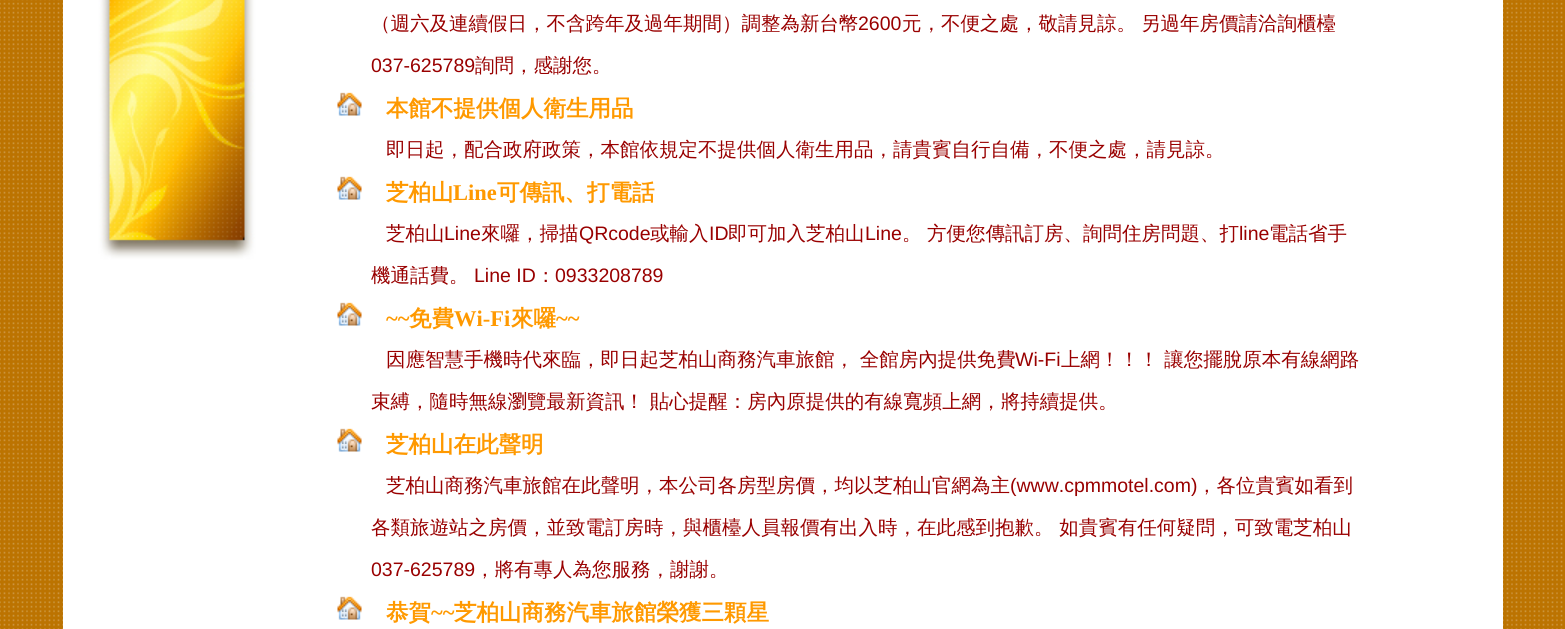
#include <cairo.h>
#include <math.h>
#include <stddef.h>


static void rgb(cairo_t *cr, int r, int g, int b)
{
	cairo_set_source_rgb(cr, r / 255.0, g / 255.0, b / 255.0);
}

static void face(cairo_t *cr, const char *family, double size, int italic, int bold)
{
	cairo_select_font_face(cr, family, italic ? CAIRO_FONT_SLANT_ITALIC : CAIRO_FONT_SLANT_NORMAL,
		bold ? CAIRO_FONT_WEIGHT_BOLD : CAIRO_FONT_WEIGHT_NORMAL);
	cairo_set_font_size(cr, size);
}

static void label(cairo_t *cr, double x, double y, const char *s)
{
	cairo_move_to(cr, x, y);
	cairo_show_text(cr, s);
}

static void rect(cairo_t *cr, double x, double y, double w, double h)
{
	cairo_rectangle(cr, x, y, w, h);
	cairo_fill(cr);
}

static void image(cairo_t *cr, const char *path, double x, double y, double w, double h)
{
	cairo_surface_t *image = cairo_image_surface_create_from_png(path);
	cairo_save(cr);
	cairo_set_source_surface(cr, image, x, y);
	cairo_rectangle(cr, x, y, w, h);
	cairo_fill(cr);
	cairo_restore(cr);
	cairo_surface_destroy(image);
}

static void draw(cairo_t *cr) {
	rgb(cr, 255, 255, 255);
	cairo_paint(cr);
	image(cr, "image0.png", 0, 0, 1565, 629);
	image(cr, "image1.png", 63, 0, 1440, 292);
	rgb(cr, 255, 255, 255);
	rect(cr, 63, 292, 1440, 337);
	face(cr, "WenQuanYi Zen Hei Medium", 19.5, 0, 0);
	rgb(cr, 153, 0, 0);
	label(cr, 371, 30, "（週六及連續假日，不含跨年及過年期間）調整為新台幣");
	face(cr, "Liberation Sans", 19.5, 0, 0);
	label(cr, 858, 30, "2600");
	face(cr, "WenQuanYi Zen Hei Medium", 19.5, 0, 0);
	label(cr, 902, 30, "元，不便之處，敬請見諒。");
	label(cr, 1141, 30, "另過年房價請洽詢櫃檯");
	face(cr, "Liberation Sans", 19.5, 0, 0);
	label(cr, 371, 72, "037-625789");
	face(cr, "WenQuanYi Zen Hei Medium", 19.5, 0, 0);
	label(cr, 475, 72, "詢問，感謝您。");
	image(cr, "image2.png", 337, 92, 25, 24);
	face(cr, "WenQuanYi Zen Hei", 22.5, 0, 1);
	rgb(cr, 255, 153, 0);
	label(cr, 386, 116, "本館不提供個人衛生用品");
	face(cr, "WenQuanYi Zen Hei Medium", 19.5, 0, 0);
	rgb(cr, 153, 0, 0);
	label(cr, 386, 156, "即日起，配合政府政策，本館依規定不提供個人衛生用品，請貴賓自行自備，不便之處，請見諒。");
	image(cr, "image2.png", 337, 176, 25, 24);
	face(cr, "WenQuanYi Zen Hei", 22.5, 0, 1);
	rgb(cr, 255, 153, 0);
	label(cr, 386, 200, "芝柏山");
	face(cr, "Liberation Serif", 22.5, 0, 1);
	label(cr, 453, 200, "Line");
	face(cr, "WenQuanYi Zen Hei", 22.5, 0, 1);
	label(cr, 497, 200, "可傳訊、打電話");
	face(cr, "WenQuanYi Zen Hei Medium", 19.5, 0, 0);
	rgb(cr, 153, 0, 0);
	label(cr, 386, 240, "芝柏山");
	face(cr, "Liberation Sans", 19.5, 0, 0);
	label(cr, 444, 240, "Line");
	face(cr, "WenQuanYi Zen Hei Medium", 19.5, 0, 0);
	label(cr, 481, 240, "來囉，掃描");
	face(cr, "Liberation Sans", 19.5, 0, 0);
	label(cr, 579, 240, "QRcode");
	face(cr, "WenQuanYi Zen Hei Medium", 19.5, 0, 0);
	label(cr, 650, 240, "或輸入");
	face(cr, "Liberation Sans", 19.5, 0, 0);
	label(cr, 709, 240, "ID");
	face(cr, "WenQuanYi Zen Hei Medium", 19.5, 0, 0);
	label(cr, 728, 240, "即可加入芝柏山");
	face(cr, "Liberation Sans", 19.5, 0, 0);
	label(cr, 865, 240, "Line");
	face(cr, "WenQuanYi Zen Hei Medium", 19.5, 0, 0);
	label(cr, 902, 240, "。");
	label(cr, 927, 240, "方便您傳訊訂房、詢問住房問題、打");
	face(cr, "Liberation Sans", 19.5, 0, 0);
	label(cr, 1239, 240, "line");
	face(cr, "WenQuanYi Zen Hei Medium", 19.5, 0, 0);
	label(cr, 1269, 240, "電話省手");
	label(cr, 371, 282, "機通話費。");
	face(cr, "Liberation Sans", 19.5, 0, 0);
	label(cr, 474, 282, "Line ID");
	face(cr, "WenQuanYi Zen Hei Medium", 19.5, 0, 0);
	label(cr, 536, 282, "：");
	face(cr, "Liberation Sans", 19.5, 0, 0);
	label(cr, 555, 282, "0933208789");
	image(cr, "image2.png", 337, 302, 25, 24);
	face(cr, "Liberation Serif", 22.5, 0, 1);
	rgb(cr, 255, 153, 0);
	label(cr, 386, 326, "~~");
	face(cr, "WenQuanYi Zen Hei", 22.5, 0, 1);
	label(cr, 409, 326, "免費");
	face(cr, "Liberation Serif", 22.5, 0, 1);
	label(cr, 454, 326, "Wi-Fi");
	face(cr, "WenQuanYi Zen Hei", 22.5, 0, 1);
	label(cr, 511, 326, "來囉");
	face(cr, "Liberation Serif", 22.5, 0, 1);
	label(cr, 556, 326, "~~");
	face(cr, "WenQuanYi Zen Hei Medium", 19.5, 0, 0);
	rgb(cr, 153, 0, 0);
	label(cr, 386, 366, "因應智慧手機時代來臨，即日起芝柏山商務汽車旅館， 全館房內提供免費");
	face(cr, "Liberation Sans", 19.5, 0, 0);
	label(cr, 1015, 366, "Wi-Fi");
	face(cr, "WenQuanYi Zen Hei Medium", 19.5, 0, 0);
	label(cr, 1061, 366, "上網！！！ 讓您擺脫原本有線網路");
	label(cr, 371, 408, "束縛，隨時無線瀏覽最新資訊！ 貼心提醒：房內原提供的有線寬頻上網，將持續提供。");
	image(cr, "image2.png", 337, 428, 25, 24);
	face(cr, "WenQuanYi Zen Hei", 22.5, 0, 1);
	rgb(cr, 255, 153, 0);
	label(cr, 386, 452, "芝柏山在此聲明");
	face(cr, "WenQuanYi Zen Hei Medium", 19.5, 0, 0);
	rgb(cr, 153, 0, 0);
	label(cr, 386, 492, "芝柏山商務汽車旅館在此聲明，本公司各房型房價，均以芝柏山官網為主");
	face(cr, "Liberation Sans", 19.5, 0, 0);
	label(cr, 1010, 492, "(www.cpmmotel.com)");
	face(cr, "WenQuanYi Zen Hei Medium", 19.5, 0, 0);
	label(cr, 1197, 492, "，各位貴賓如看到");
	label(cr, 371, 534, "各類旅遊站之房價，並致電訂房時，與櫃檯人員報價有出入時，在此感到抱歉。 如貴賓有任何疑問，可致電芝柏山");
	face(cr, "Liberation Sans", 19.5, 0, 0);
	label(cr, 371, 576, "037-625789");
	face(cr, "WenQuanYi Zen Hei Medium", 19.5, 0, 0);
	label(cr, 475, 576, "，將有專人為您服務，謝謝。");
	image(cr, "image2.png", 337, 596, 25, 24);
	face(cr, "WenQuanYi Zen Hei", 22.5, 0, 1);
	rgb(cr, 255, 153, 0);
	label(cr, 386, 620, "恭賀");
	face(cr, "Liberation Serif", 22.5, 0, 1);
	label(cr, 431, 620, "~~");
	face(cr, "WenQuanYi Zen Hei", 22.5, 0, 1);
	label(cr, 454, 620, "芝柏山商務汽車旅館榮獲三顆星");
}

int main(void) {
	cairo_surface_t *surface = cairo_image_surface_create(CAIRO_FORMAT_RGB24, 1565, 629);
	cairo_t *cr = cairo_create(surface);
	cairo_font_options_t *options = cairo_font_options_create();
	cairo_font_options_set_hint_metrics(options, CAIRO_HINT_METRICS_OFF);
	cairo_font_options_set_hint_style(options, CAIRO_HINT_STYLE_NONE);
	cairo_set_font_options(cr, options);
	cairo_set_miter_limit(cr, 4);
	draw(cr);
	cairo_surface_write_to_png(surface, "render.png");
	cairo_font_options_destroy(options);
	cairo_destroy(cr);
	cairo_surface_destroy(surface);
	return 0;
}
